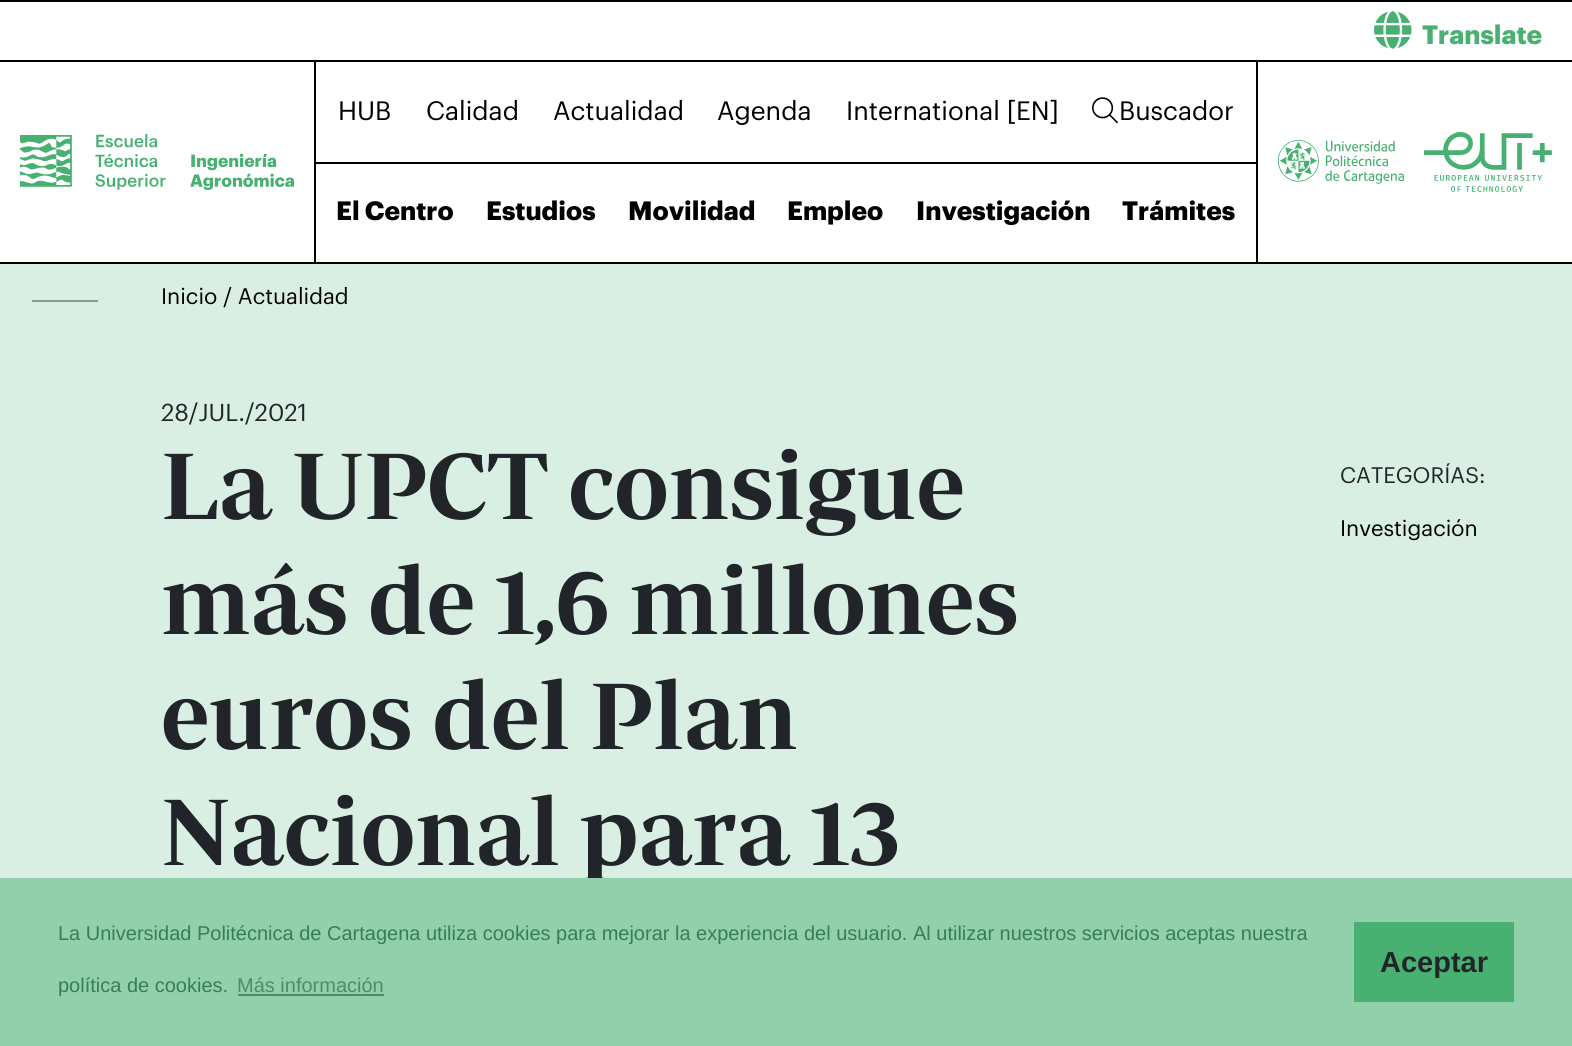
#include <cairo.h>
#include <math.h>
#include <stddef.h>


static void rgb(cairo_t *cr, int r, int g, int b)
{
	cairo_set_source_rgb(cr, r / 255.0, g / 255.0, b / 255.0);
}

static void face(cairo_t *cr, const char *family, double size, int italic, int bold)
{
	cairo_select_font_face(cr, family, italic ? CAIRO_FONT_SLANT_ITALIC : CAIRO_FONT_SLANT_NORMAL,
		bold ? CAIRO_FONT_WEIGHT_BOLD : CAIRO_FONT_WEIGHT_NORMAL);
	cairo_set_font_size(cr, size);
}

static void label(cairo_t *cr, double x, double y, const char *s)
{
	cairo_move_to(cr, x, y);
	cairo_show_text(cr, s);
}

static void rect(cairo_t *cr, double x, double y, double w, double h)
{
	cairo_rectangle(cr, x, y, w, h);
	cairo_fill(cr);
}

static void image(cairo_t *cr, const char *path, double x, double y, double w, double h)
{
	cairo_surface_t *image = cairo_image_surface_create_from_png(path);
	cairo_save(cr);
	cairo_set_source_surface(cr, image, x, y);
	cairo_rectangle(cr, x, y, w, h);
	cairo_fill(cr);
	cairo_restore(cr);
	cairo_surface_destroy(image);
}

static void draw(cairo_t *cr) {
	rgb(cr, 218, 239, 227);
	cairo_paint(cr);
	rgb(cr, 255, 255, 255);
	rect(cr, 0, 2, 1572, 58);
	rgb(cr, 0, 0, 0);
	rect(cr, 0, 0, 1572, 2);
	image(cr, "image0.png", 1374, 11, 38, 38);
	face(cr, "Graphik", 26, 0, 1);
	rgb(cr, 72, 177, 113);
	label(cr, 1422, 44, "Translate");
	rgb(cr, 255, 255, 255);
	rect(cr, 0, 62, 1572, 200);
	rgb(cr, 0, 0, 0);
	rect(cr, 0, 60, 1572, 2);
	rect(cr, 0, 262, 1572, 2);
	image(cr, "image1.png", 20, 134, 274, 56);
	rect(cr, 1256, 62, 2, 200);
	rect(cr, 314, 62, 2, 200);
	face(cr, "Graphik", 26, 0, 0);
	label(cr, 338, 120, "HUB");
	label(cr, 426, 120, "Calidad");
	label(cr, 553, 120, "Actualidad");
	label(cr, 717, 120, "Agenda");
	label(cr, 846, 120, "International [EN]");
	image(cr, "image2.png", 1092, 97, 26, 27);
	label(cr, 1119, 120, "Buscador");
	rect(cr, 316, 162, 940, 2);
	face(cr, "Graphik", 26, 0, 1);
	label(cr, 336, 220, "El Centro");
	label(cr, 486, 220, "Estudios");
	label(cr, 628, 220, "Movilidad");
	label(cr, 787, 220, "Empleo");
	label(cr, 916, 220, "Investigación");
	label(cr, 1122, 220, "Trámites");
	image(cr, "image3.png", 1278, 140, 126, 44);
	image(cr, "image4.png", 1424, 132, 128, 60);
	rgb(cr, 142, 155, 148);
	rect(cr, 32, 300, 66, 2);
	face(cr, "Graphik", 22, 0, 0);
	rgb(cr, 0, 0, 0);
	label(cr, 161, 304, "Inicio / Actualidad");
	face(cr, "Graphik", 24, 0, 0);
	rgb(cr, 33, 37, 41);
	label(cr, 161, 421, "28/JUL./2021");
	face(cr, "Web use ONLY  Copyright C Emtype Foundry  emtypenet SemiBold", 96, 0, 0);
	label(cr, 161, 519, "La UPCT consigue");
	label(cr, 161, 634, "más de 1,6 millones");
	label(cr, 161, 749, "euros del Plan");
	label(cr, 161, 865, "Nacional para 13");
	face(cr, "Graphik", 22, 0, 0);
	label(cr, 1340, 483, "CATEGORÍAS:");
	rgb(cr, 0, 0, 0);
	label(cr, 1340, 536, "Investigación");
	rgb(cr, 145, 208, 170);
	rect(cr, 0, 878, 1572, 168);
	face(cr, "Liberation Sans", 20, 0, 0);
	rgb(cr, 56, 126, 83);
	label(cr, 58, 940, "La Universidad Politécnica de Cartagena utiliza cookies para mejorar la experiencia del usuario. Al utilizar nuestros servicios aceptas nuestra");
	label(cr, 58, 992, "política de cookies.");
	rgb(cr, 74, 142, 100);
	label(cr, 237, 992, "Más información");
	rect(cr, 238, 994, 146, 2);
	rgb(cr, 72, 177, 113);
	rect(cr, 1354, 922, 160, 80);
	face(cr, "Liberation Sans", 29, 0, 1);
	rgb(cr, 33, 37, 41);
	label(cr, 1380, 972, "Aceptar");
}

int main(void) {
	cairo_surface_t *surface = cairo_image_surface_create(CAIRO_FORMAT_RGB24, 1572, 1046);
	cairo_t *cr = cairo_create(surface);
	cairo_font_options_t *options = cairo_font_options_create();
	cairo_font_options_set_hint_metrics(options, CAIRO_HINT_METRICS_OFF);
	cairo_font_options_set_hint_style(options, CAIRO_HINT_STYLE_NONE);
	cairo_set_font_options(cr, options);
	cairo_set_miter_limit(cr, 4);
	draw(cr);
	cairo_surface_write_to_png(surface, "render.png");
	cairo_font_options_destroy(options);
	cairo_destroy(cr);
	cairo_surface_destroy(surface);
	return 0;
}
